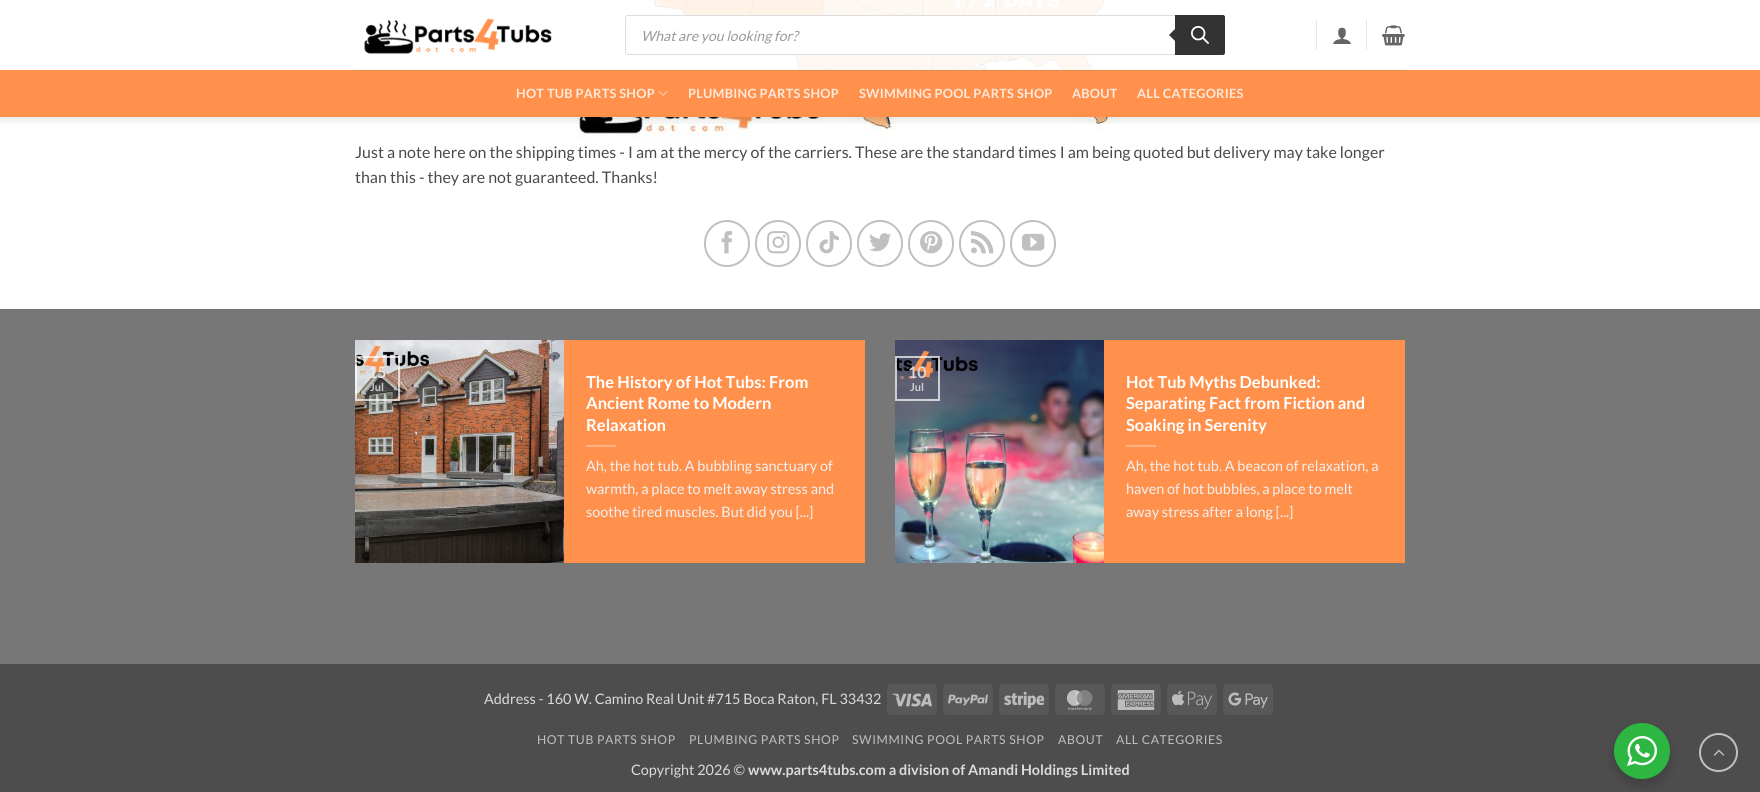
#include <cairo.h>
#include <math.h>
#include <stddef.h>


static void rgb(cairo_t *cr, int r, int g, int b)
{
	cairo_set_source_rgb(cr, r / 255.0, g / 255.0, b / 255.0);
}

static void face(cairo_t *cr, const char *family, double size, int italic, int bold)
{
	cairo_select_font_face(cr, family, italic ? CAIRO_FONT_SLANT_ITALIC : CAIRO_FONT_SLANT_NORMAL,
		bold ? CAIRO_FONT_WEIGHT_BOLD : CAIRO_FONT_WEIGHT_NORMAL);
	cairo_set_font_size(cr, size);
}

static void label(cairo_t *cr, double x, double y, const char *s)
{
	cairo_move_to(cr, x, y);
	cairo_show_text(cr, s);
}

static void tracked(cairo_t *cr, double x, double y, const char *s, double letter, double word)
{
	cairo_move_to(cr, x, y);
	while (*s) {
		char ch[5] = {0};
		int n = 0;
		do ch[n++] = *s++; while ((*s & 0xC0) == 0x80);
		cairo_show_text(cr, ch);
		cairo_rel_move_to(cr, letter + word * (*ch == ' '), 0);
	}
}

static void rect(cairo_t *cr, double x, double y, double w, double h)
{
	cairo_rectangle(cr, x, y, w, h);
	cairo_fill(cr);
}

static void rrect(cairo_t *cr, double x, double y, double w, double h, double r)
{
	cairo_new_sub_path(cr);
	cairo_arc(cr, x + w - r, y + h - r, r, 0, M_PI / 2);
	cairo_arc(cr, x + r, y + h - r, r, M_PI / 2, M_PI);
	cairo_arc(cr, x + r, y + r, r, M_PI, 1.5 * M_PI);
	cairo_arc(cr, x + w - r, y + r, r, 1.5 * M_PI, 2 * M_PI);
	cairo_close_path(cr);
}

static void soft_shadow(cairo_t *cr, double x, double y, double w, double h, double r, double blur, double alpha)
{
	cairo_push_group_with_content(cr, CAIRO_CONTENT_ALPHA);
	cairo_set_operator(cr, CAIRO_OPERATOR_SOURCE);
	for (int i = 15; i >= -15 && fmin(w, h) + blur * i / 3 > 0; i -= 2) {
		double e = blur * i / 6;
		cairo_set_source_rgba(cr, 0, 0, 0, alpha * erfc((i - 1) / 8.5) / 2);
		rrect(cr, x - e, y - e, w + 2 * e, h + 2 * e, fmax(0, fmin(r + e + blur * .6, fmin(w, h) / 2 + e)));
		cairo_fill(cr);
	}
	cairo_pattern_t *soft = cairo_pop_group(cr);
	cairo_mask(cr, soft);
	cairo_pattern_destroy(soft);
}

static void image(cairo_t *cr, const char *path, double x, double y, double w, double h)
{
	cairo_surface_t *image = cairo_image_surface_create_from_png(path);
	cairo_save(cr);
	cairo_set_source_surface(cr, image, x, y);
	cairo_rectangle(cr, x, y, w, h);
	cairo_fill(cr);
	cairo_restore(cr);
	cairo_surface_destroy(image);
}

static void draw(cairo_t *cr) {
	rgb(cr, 255, 255, 255);
	cairo_paint(cr);
	image(cr, "image5.png", 576, 0, 576, 139);
	cairo_save(cr);
	cairo_rectangle(cr, 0, 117, 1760, 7);
	cairo_clip(cr);
	rgb(cr, 0, 0, 0);
	soft_shadow(cr, 1, 1, 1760, 117, 0, 5, 0.15);
	cairo_restore(cr);
	cairo_set_source_rgba(cr, 1, 1, 1, 0.9);
	rect(cr, 640, 0, 480, 70);
	image(cr, "image0.png", 364, 18, 188, 36);
	rgb(cr, 255, 255, 255);
	rrect(cr, 625.5, 15.5, 599, 39, 2.5);
	cairo_fill_preserve(cr);
	rgb(cr, 221, 221, 221);
	cairo_set_line_width(cr, 1);
	cairo_stroke(cr);
	face(cr, "Lato", 14, 1, 0);
	rgb(cr, 153, 153, 153);
	label(cr, 641, 41, "What are you looking for?");
	rgb(cr, 51, 51, 51);
	cairo_new_path(cr);
	cairo_move_to(cr, 1175, 15);
	cairo_line_to(cr, 1223, 15);
	cairo_curve_to(cr, 1224, 15, 1225, 16, 1225, 17);
	cairo_line_to(cr, 1225, 53);
	cairo_curve_to(cr, 1225, 54, 1224, 55, 1223, 55);
	cairo_line_to(cr, 1175, 55);
	cairo_close_path(cr);
	cairo_fill(cr);
	cairo_new_path(cr);
	cairo_move_to(cr, 1177, 27);
	cairo_line_to(cr, 1177, 43);
	cairo_line_to(cr, 1169, 35);
	cairo_close_path(cr);
	cairo_fill(cr);
	image(cr, "image1.png", 1191, 26, 18, 18);
	rgb(cr, 230, 230, 230);
	rect(cr, 1316, 20, 1, 30);
	image(cr, "image2.png", 1333, 27, 18, 17);
	rect(cr, 1366, 20, 1, 30);
	image(cr, "image3.png", 1382, 25, 23, 21);
	rgb(cr, 255, 145, 77);
	rect(cr, 0, 70, 1760, 47);
	rgb(cr, 237, 138, 77);
	rect(cr, 355, 70, 1050, 1);
	face(cr, "Lato", 12.75, 0, 1);
	rgb(cr, 255, 233, 219);
	tracked(cr, 516, 98, "HOT TUB PARTS SHOP", 0.25, 0);
	image(cr, "image4.png", 658, 90, 10, 6);
	tracked(cr, 688, 98, "PLUMBING PARTS SHOP", 0.25, 0);
	tracked(cr, 859, 98, "SWIMMING POOL PARTS SHOP", 0.25, 0);
	tracked(cr, 1072, 98, "ABOUT", 0.25, 0);
	tracked(cr, 1137, 98, "ALL CATEGORIES", 0.25, 0);
	face(cr, "Lato", 16, 0, 0);
	rgb(cr, 74, 74, 74);
	label(cr, 355, 158, "Just a note here on the shipping times - I am at the mercy of the carriers. These are the standard times I am being quoted but delivery may take longer");
	label(cr, 355, 183, "than this - they are not guaranteed. Thanks!");
	rrect(cr, 705, 221, 44, 45, 22);
	rgb(cr, 192, 192, 192);
	cairo_set_line_width(cr, 2);
	cairo_stroke(cr);
	image(cr, "image6.png", 721, 231, 11, 23);
	rrect(cr, 756, 221, 44, 45, 22);
	cairo_stroke(cr);
	image(cr, "image7.png", 767, 231, 23, 23);
	rrect(cr, 807, 221, 44, 45, 22);
	cairo_stroke(cr);
	image(cr, "image8.png", 819, 231, 20, 23);
	rrect(cr, 858, 221, 44, 45, 22);
	cairo_stroke(cr);
	image(cr, "image9.png", 869, 233, 22, 19);
	rrect(cr, 909, 221, 44, 45, 22);
	cairo_stroke(cr);
	image(cr, "image10.png", 920, 231, 23, 23);
	rrect(cr, 960, 221, 44, 45, 22);
	cairo_stroke(cr);
	image(cr, "image11.png", 971, 231, 23, 23);
	rrect(cr, 1011, 221, 44, 45, 22);
	cairo_stroke(cr);
	image(cr, "image12.png", 1022, 233, 23, 18);
	rgb(cr, 119, 119, 119);
	rect(cr, 0, 310, 1760, 354);
	rgb(cr, 113, 113, 113);
	rect(cr, 0, 309, 1760, 1);
	image(cr, "image13.png", 355, 340, 209, 223);
	cairo_rectangle(cr, 356, 357, 43, 43);
	cairo_set_source_rgba(cr, 1, 1, 1, 0.7);
	cairo_stroke(cr);
	face(cr, "Lato", 16, 0, 1);
	rgb(cr, 236, 229, 224);
	label(cr, 368, 378, "15");
	face(cr, "Lato", 11, 0, 1);
	rgb(cr, 201, 200, 200);
	label(cr, 370, 391, "Jul");
	rgb(cr, 255, 145, 77);
	rect(cr, 564, 340, 301, 223);
	face(cr, "Lato", 16.5, 0, 1);
	rgb(cr, 255, 255, 255);
	label(cr, 586, 388, "The History of Hot Tubs: From");
	label(cr, 586, 409, "Ancient Rome to Modern");
	label(cr, 586, 431, "Relaxation");
	rgb(cr, 255, 178, 130);
	rect(cr, 586, 445, 30, 2);
	face(cr, "Lato", 14.4, 0, 0);
	rgb(cr, 241, 241, 241);
	label(cr, 586, 471, "Ah, the hot tub. A bubbling sanctuary of");
	label(cr, 586, 494, "warmth, a place to melt away stress and");
	label(cr, 586, 517, "soothe tired muscles. But did you [...]");
	image(cr, "image14.png", 895, 340, 209, 223);
	cairo_rectangle(cr, 896, 357, 43, 43);
	cairo_set_source_rgba(cr, 1, 1, 1, 0.7);
	cairo_stroke(cr);
	face(cr, "Lato", 16, 0, 1);
	rgb(cr, 222, 210, 206);
	label(cr, 908, 378, "10");
	face(cr, "Lato", 11, 0, 1);
	rgb(cr, 207, 207, 213);
	label(cr, 910, 391, "Jul");
	rgb(cr, 255, 145, 77);
	rect(cr, 1104, 340, 301, 223);
	face(cr, "Lato", 16.5, 0, 1);
	rgb(cr, 255, 255, 255);
	label(cr, 1126, 388, "Hot Tub Myths Debunked:");
	label(cr, 1126, 409, "Separating Fact from Fiction and");
	label(cr, 1126, 431, "Soaking in Serenity");
	rgb(cr, 255, 178, 130);
	rect(cr, 1126, 445, 30, 2);
	face(cr, "Lato", 14.4, 0, 0);
	rgb(cr, 241, 241, 241);
	label(cr, 1126, 471, "Ah, the hot tub. A beacon of relaxation, a");
	label(cr, 1126, 494, "haven of hot bubbles, a place to melt");
	label(cr, 1126, 517, "away stress after a long [...]");
	rgb(cr, 77, 77, 77);
	rect(cr, 0, 664, 1760, 128);
	rgb(cr, 219, 219, 219);
	label(cr, 484, 704, "Address - 160 W. Camino Real Unit #715 Boca Raton, FL 33432");
	rgb(cr, 88, 88, 88);
	rrect(cr, 887, 684, 50, 31, 5);
	cairo_fill(cr);
	image(cr, "image15.png", 892, 693, 40, 14);
	rrect(cr, 943, 684, 50, 31, 5);
	cairo_fill(cr);
	image(cr, "image16.png", 948, 694, 40, 12);
	rrect(cr, 999, 684, 50, 31, 5);
	cairo_fill(cr);
	image(cr, "image17.png", 1004, 691, 40, 18);
	rrect(cr, 1055, 684, 50, 31, 5);
	cairo_fill(cr);
	image(cr, "image18.png", 1066, 690, 27, 20);
	rrect(cr, 1111, 684, 50, 31, 5);
	cairo_fill(cr);
	image(cr, "image19.png", 1117, 690, 38, 20);
	rrect(cr, 1167, 684, 50, 31, 5);
	cairo_fill(cr);
	image(cr, "image20.png", 1172, 690, 40, 20);
	rrect(cr, 1223, 684, 50, 31, 5);
	cairo_fill(cr);
	image(cr, "image21.png", 1228, 692, 40, 17);
	face(cr, "Lato", 12.25, 0, 0);
	rgb(cr, 191, 191, 191);
	tracked(cr, 537, 744, "HOT TUB PARTS SHOP", 0.6, 0);
	tracked(cr, 689, 744, "PLUMBING PARTS SHOP", 0.6, 0);
	tracked(cr, 852, 744, "SWIMMING POOL PARTS SHOP", 0.6, 0);
	tracked(cr, 1058, 744, "ABOUT", 0.6, 0);
	tracked(cr, 1116, 744, "ALL CATEGORIES", 0.6, 0);
	face(cr, "Lato", 14.4, 0, 0);
	rgb(cr, 219, 219, 219);
	label(cr, 631, 775, "Copyright 2026 ©");
	face(cr, "Lato", 14.4, 0, 1);
	label(cr, 748, 775, "www.parts4tubs.com a division of Amandi Holdings Limited");
	cairo_new_path(cr);
	cairo_arc(cr, 1718.5, 752.5, 18.5, 0, 2 * M_PI);
	rgb(cr, 192, 192, 192);
	cairo_stroke(cr);
	image(cr, "image22.png", 1713, 749, 12, 7);
	rgb(cr, 0, 0, 0);
	soft_shadow(cr, 1612, 727, 60, 60, 30, 4, 0.14);
	rgb(cr, 45, 183, 66);
	cairo_arc(cr, 1642, 751, 28, 0, 2 * M_PI);
	cairo_fill(cr);
	image(cr, "image23.png", 1627, 736, 30, 30);
}

int main(void) {
	cairo_surface_t *surface = cairo_image_surface_create(CAIRO_FORMAT_RGB24, 1760, 792);
	cairo_t *cr = cairo_create(surface);
	cairo_font_options_t *options = cairo_font_options_create();
	cairo_font_options_set_hint_metrics(options, CAIRO_HINT_METRICS_OFF);
	cairo_font_options_set_hint_style(options, CAIRO_HINT_STYLE_NONE);
	cairo_set_font_options(cr, options);
	cairo_set_miter_limit(cr, 4);
	draw(cr);
	cairo_surface_write_to_png(surface, "render.png");
	cairo_font_options_destroy(options);
	cairo_destroy(cr);
	cairo_surface_destroy(surface);
	return 0;
}
